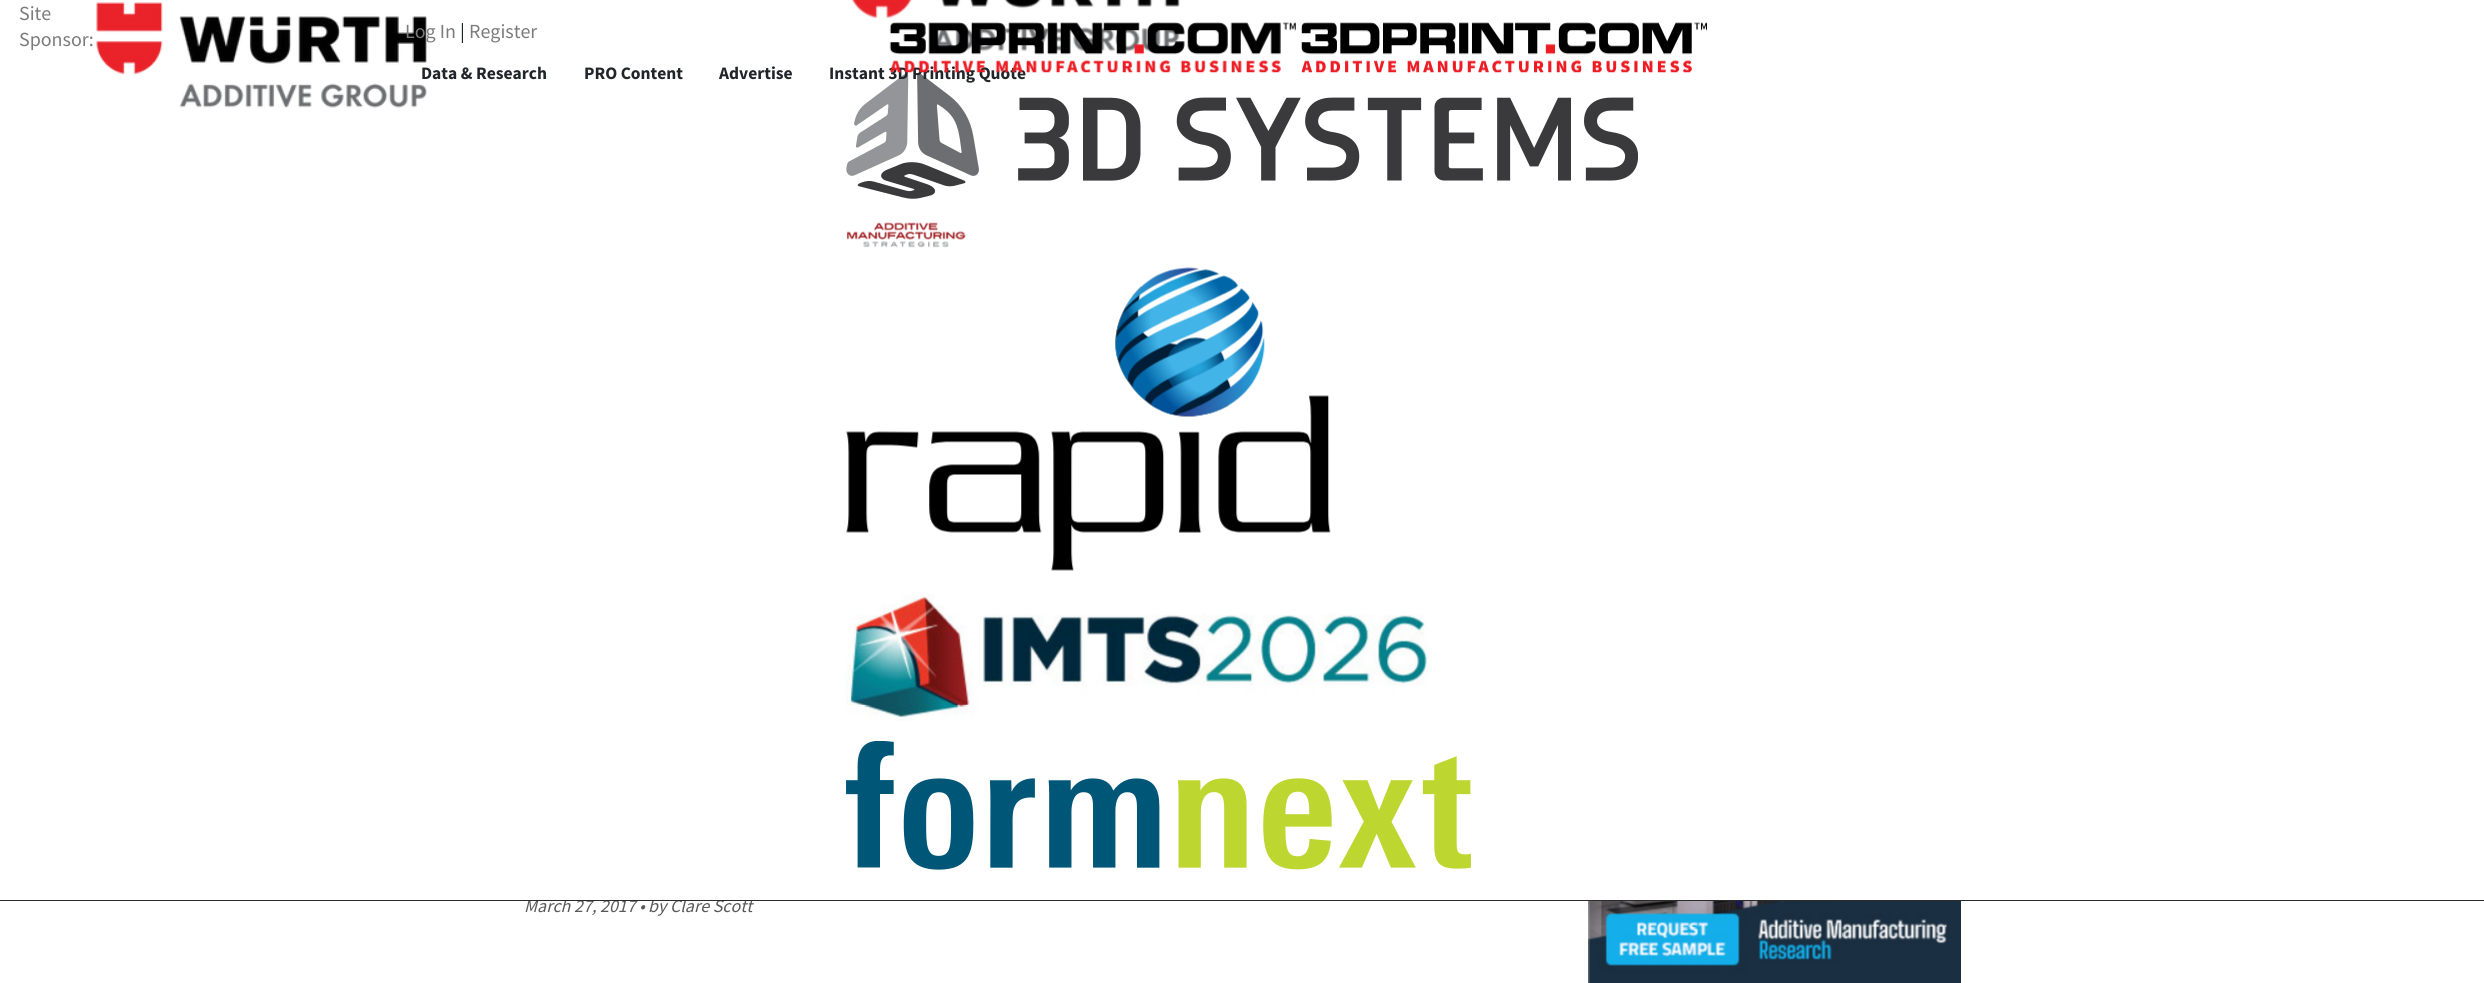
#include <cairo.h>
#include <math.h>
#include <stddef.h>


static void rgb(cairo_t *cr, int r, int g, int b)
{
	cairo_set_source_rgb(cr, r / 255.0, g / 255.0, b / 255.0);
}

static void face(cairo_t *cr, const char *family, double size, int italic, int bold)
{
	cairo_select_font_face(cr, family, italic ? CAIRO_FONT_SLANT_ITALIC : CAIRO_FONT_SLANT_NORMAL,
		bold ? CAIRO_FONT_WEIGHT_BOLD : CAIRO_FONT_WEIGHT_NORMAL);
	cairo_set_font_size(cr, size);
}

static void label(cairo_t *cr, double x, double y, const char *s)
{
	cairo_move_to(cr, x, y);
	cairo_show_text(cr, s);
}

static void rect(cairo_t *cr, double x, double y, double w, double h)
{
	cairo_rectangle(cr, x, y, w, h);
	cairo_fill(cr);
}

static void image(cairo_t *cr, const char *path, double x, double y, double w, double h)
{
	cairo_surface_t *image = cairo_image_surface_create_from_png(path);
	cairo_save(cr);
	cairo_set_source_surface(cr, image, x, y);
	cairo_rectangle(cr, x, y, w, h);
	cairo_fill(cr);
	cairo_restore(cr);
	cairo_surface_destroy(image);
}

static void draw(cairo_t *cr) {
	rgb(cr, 255, 255, 255);
	cairo_paint(cr);
	face(cr, "Source Sans Pro", 18, 1, 0);
	rgb(cr, 89, 89, 89);
	label(cr, 524, 912, "March 27, 2017 •");
	label(cr, 648, 912, "by Clare Scott");
	rgb(cr, 255, 255, 255);
	rect(cr, 564, 899, 123, 1);
	rgb(cr, 43, 42, 43);
	rect(cr, 0, 900, 2484, 1);
	face(cr, "Source Sans Pro", 20, 0, 0);
	rgb(cr, 123, 123, 123);
	label(cr, 19, 20, "Site");
	label(cr, 19, 46, "Sponsor:");
	image(cr, "image0.png", 96, 2, 331, 106);
	label(cr, 405, 38, "Log In");
	rgb(cr, 33, 37, 41);
	label(cr, 460, 38, "|");
	rgb(cr, 123, 123, 123);
	label(cr, 469, 38, "Register");
	face(cr, "Source Sans Pro", 17.5, 0, 1);
	rgb(cr, 33, 37, 41);
	label(cr, 421, 79, "Data & Research");
	label(cr, 584, 79, "PRO Content");
	label(cr, 719, 79, "Advertise");
	image(cr, "image2.png", 846, 74, 792, 125);
	label(cr, 829, 79, "Instant 3D Printing Quote");
	image(cr, "image1.png", 852, 0, 328, 52);
	image(cr, "image3.png", 846, 222, 120, 26);
	image(cr, "image4.png", 846, 267, 485, 304);
	image(cr, "image5.png", 846, 594, 584, 127);
	image(cr, "image6.png", 846, 741, 625, 129);
	image(cr, "image7.png", 889, 22, 407, 51);
	image(cr, "image8.png", 1301, 22, 406, 51);
	image(cr, "image9.png", 1588, 901, 373, 82);
}

int main(void) {
	cairo_surface_t *surface = cairo_image_surface_create(CAIRO_FORMAT_RGB24, 2484, 983);
	cairo_t *cr = cairo_create(surface);
	cairo_font_options_t *options = cairo_font_options_create();
	cairo_font_options_set_hint_metrics(options, CAIRO_HINT_METRICS_OFF);
	cairo_font_options_set_hint_style(options, CAIRO_HINT_STYLE_NONE);
	cairo_set_font_options(cr, options);
	cairo_set_miter_limit(cr, 4);
	draw(cr);
	cairo_surface_write_to_png(surface, "render.png");
	cairo_font_options_destroy(options);
	cairo_destroy(cr);
	cairo_surface_destroy(surface);
	return 0;
}
